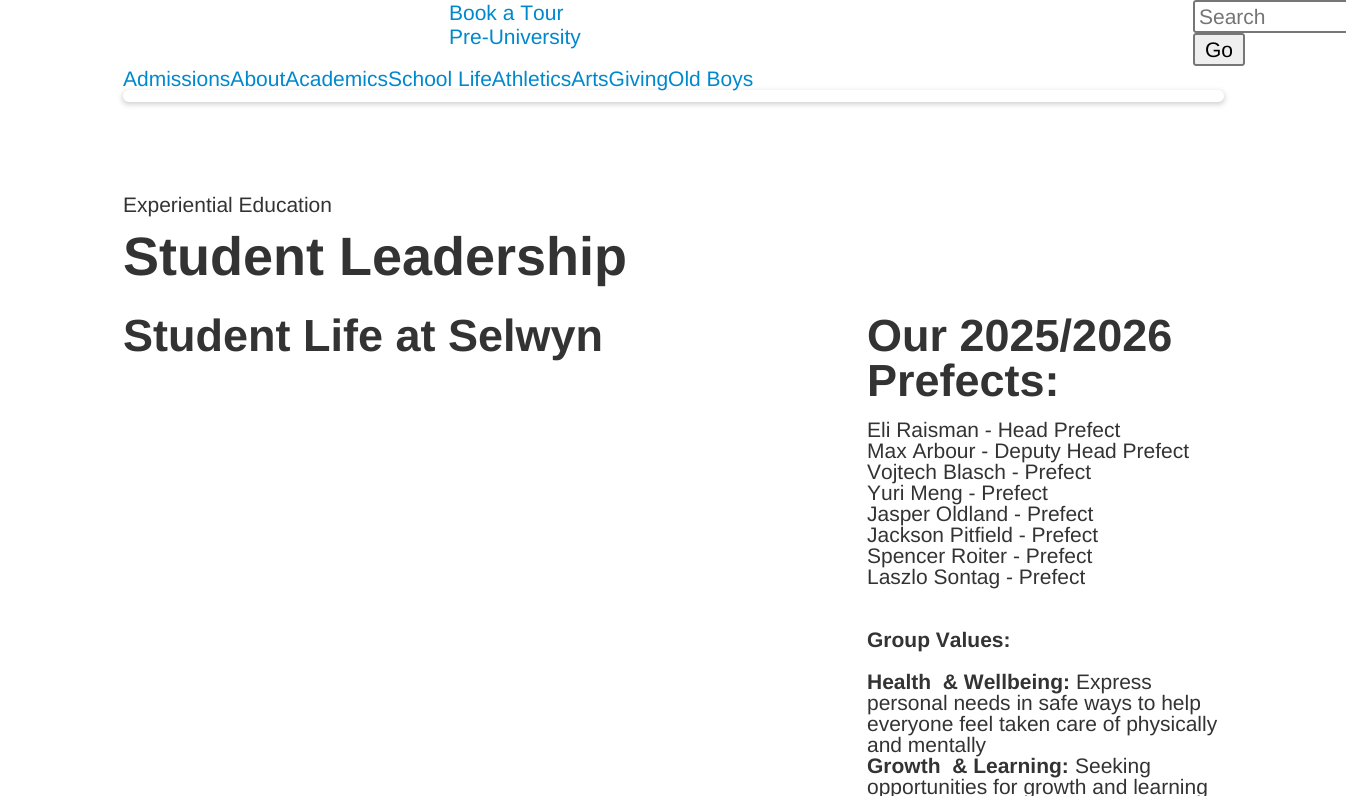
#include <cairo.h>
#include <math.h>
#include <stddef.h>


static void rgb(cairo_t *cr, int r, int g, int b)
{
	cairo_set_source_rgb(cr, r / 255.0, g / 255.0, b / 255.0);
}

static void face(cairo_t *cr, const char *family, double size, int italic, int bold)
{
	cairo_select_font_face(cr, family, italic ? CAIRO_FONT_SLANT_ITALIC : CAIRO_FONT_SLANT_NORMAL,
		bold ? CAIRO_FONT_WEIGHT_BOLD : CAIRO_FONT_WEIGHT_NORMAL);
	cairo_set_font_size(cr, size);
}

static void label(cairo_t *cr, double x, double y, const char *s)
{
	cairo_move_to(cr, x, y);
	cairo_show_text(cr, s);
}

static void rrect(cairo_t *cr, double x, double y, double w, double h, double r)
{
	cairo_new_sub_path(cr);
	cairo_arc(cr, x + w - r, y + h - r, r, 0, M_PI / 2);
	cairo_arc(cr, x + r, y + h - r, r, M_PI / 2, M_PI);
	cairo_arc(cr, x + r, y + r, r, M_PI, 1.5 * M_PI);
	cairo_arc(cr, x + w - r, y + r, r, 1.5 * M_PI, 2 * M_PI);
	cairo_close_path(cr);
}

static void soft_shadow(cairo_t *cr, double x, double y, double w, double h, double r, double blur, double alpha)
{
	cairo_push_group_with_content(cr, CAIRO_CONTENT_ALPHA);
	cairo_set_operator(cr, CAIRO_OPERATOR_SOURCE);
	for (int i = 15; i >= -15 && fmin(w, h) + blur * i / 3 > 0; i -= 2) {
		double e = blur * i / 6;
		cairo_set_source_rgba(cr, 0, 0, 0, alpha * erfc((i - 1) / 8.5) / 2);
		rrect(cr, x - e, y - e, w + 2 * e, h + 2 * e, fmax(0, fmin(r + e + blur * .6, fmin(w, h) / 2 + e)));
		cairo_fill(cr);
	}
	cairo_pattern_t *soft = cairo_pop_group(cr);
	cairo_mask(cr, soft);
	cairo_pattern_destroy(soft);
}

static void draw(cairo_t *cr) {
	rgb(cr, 255, 255, 255);
	cairo_paint(cr);
	face(cr, "Liberation Sans", 21, 0, 0);
	rgb(cr, 0, 136, 204);
	label(cr, 449, 20, "Book a Tour");
	label(cr, 449, 44, "Pre-University");
	rrect(cr, 1194, 1, 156, 31, 2);
	rgb(cr, 118, 118, 118);
	cairo_stroke(cr);
	rgb(cr, 117, 117, 117);
	label(cr, 1199, 24, "Search");
	rgb(cr, 239, 239, 239);
	rrect(cr, 1194, 34, 50, 31, 2);
	cairo_fill_preserve(cr);
	rgb(cr, 118, 118, 118);
	cairo_stroke(cr);
	rgb(cr, 0, 0, 0);
	label(cr, 1205, 57, "Go");
	rgb(cr, 0, 0, 0);
	soft_shadow(cr, 123, 92, 1101, 12, 6, 3, 0.2);
	rgb(cr, 255, 255, 255);
	rrect(cr, 123, 90, 1101, 12, 6);
	cairo_fill(cr);
	rgb(cr, 0, 136, 204);
	label(cr, 123, 86, "AdmissionsAboutAcademicsSchool LifeAthleticsArtsGivingOld Boys");
	rgb(cr, 51, 51, 51);
	label(cr, 123, 212, "Experiential Education");
	face(cr, "Liberation Sans", 54, 0, 1);
	label(cr, 123, 275, "Student Leadership");
	face(cr, "Liberation Sans", 45, 0, 1);
	label(cr, 123, 351, "Student Life at Selwyn");
	label(cr, 867, 351, "Our 2025/2026");
	label(cr, 867, 396, "Prefects:");
	face(cr, "Liberation Sans", 21, 0, 0);
	label(cr, 867, 437, "Eli Raisman - Head Prefect");
	label(cr, 867, 458, "Max Arbour - Deputy Head Prefect");
	label(cr, 867, 479, "Vojtech Blasch - Prefect");
	label(cr, 867, 500, "Yuri Meng - Prefect");
	label(cr, 867, 521, "Jasper Oldland - Prefect");
	label(cr, 867, 542, "Jackson Pitfield - Prefect");
	label(cr, 867, 563, "Spencer Roiter - Prefect");
	label(cr, 867, 584, "Laszlo Sontag - Prefect");
	face(cr, "Liberation Sans", 21, 0, 1);
	label(cr, 867, 647, "Group Values:");
	label(cr, 867, 689, "Health  & Wellbeing:");
	face(cr, "Liberation Sans", 21, 0, 0);
	label(cr, 1076, 689, "Express");
	label(cr, 867, 710, "personal needs in safe ways to help");
	label(cr, 867, 731, "everyone feel taken care of physically");
	label(cr, 867, 752, "and mentally");
	face(cr, "Liberation Sans", 21, 0, 1);
	label(cr, 867, 773, "Growth  & Learning:");
	face(cr, "Liberation Sans", 21, 0, 0);
	label(cr, 1075, 773, "Seeking");
	label(cr, 867, 794, "opportunities for growth and learning");
}

int main(void) {
	cairo_surface_t *surface = cairo_image_surface_create(CAIRO_FORMAT_RGB24, 1346, 796);
	cairo_t *cr = cairo_create(surface);
	cairo_font_options_t *options = cairo_font_options_create();
	cairo_font_options_set_hint_metrics(options, CAIRO_HINT_METRICS_OFF);
	cairo_font_options_set_hint_style(options, CAIRO_HINT_STYLE_NONE);
	cairo_set_font_options(cr, options);
	cairo_set_miter_limit(cr, 4);
	draw(cr);
	cairo_surface_write_to_png(surface, "render.png");
	cairo_font_options_destroy(options);
	cairo_destroy(cr);
	cairo_surface_destroy(surface);
	return 0;
}
